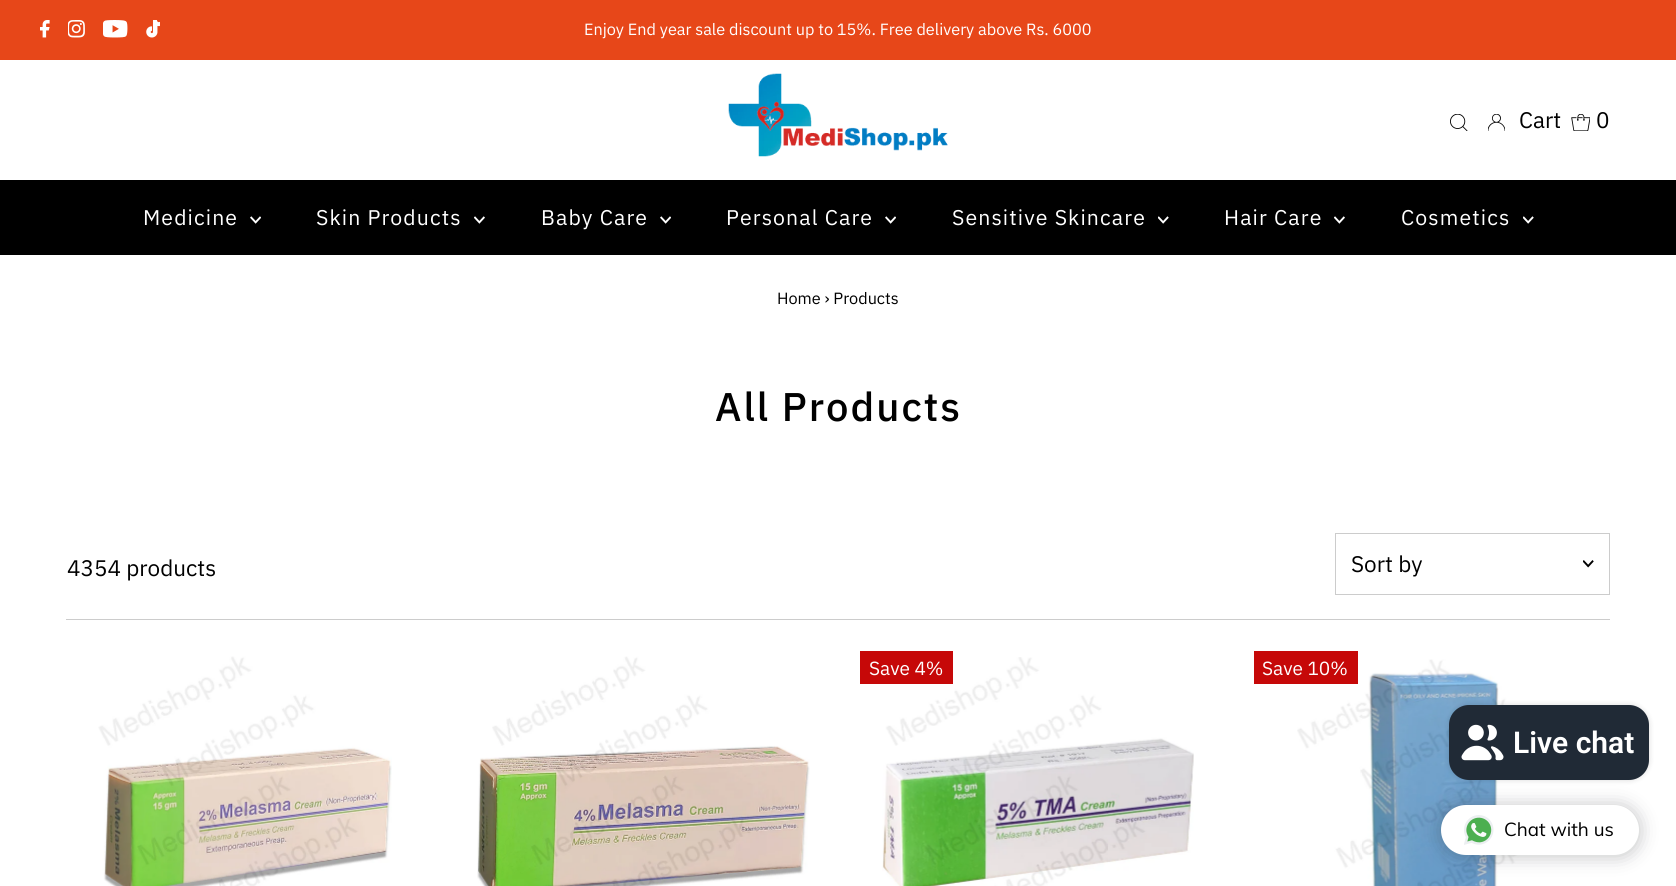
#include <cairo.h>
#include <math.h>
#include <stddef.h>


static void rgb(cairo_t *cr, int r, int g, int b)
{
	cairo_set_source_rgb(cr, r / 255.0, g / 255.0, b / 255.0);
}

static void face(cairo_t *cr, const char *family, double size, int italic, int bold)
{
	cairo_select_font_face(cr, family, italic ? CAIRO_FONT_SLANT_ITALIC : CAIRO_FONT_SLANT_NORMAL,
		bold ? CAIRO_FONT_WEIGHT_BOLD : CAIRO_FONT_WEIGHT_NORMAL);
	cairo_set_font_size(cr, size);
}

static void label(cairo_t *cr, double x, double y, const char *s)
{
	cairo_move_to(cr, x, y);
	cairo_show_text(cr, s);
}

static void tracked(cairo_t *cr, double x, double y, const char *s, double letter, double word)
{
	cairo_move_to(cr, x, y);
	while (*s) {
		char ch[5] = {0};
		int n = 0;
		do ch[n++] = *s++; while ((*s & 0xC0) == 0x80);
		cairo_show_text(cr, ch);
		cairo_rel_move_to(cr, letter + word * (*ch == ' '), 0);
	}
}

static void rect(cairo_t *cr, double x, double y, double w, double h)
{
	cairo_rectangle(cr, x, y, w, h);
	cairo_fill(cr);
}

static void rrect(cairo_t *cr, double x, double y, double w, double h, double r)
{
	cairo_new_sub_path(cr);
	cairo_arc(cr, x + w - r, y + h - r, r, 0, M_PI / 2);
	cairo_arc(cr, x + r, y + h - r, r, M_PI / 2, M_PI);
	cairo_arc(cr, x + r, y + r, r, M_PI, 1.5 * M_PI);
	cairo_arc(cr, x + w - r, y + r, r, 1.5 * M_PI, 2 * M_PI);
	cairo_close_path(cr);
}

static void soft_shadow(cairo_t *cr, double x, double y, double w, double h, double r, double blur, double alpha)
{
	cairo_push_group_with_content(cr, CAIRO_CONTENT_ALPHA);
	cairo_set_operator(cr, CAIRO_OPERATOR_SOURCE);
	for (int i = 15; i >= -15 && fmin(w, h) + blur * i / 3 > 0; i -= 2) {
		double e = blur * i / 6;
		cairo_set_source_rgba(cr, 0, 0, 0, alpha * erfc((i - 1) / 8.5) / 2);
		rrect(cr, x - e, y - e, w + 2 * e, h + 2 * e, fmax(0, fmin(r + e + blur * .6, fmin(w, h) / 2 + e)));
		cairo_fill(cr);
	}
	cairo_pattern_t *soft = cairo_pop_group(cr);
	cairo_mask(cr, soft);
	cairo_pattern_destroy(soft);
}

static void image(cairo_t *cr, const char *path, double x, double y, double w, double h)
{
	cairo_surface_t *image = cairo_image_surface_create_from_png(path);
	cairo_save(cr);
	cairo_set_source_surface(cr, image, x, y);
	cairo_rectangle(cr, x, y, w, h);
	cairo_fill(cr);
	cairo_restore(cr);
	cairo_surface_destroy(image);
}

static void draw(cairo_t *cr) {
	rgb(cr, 255, 255, 255);
	cairo_paint(cr);
	rgb(cr, 231, 71, 25);
	rect(cr, 0, 0, 1676, 60);
	image(cr, "image0.png", 40, 20, 10, 18);
	image(cr, "image1.png", 68, 20, 17, 18);
	image(cr, "image2.png", 103, 20, 25, 18);
	image(cr, "image3.png", 146, 20, 14, 18);
	face(cr, "IBM Plex Sans", 16.25, 0, 0);
	rgb(cr, 255, 255, 255);
	label(cr, 584, 35, "Enjoy End year sale discount up to 15%. Free delivery above Rs. 6000");
	image(cr, "image4.png", 728, 73, 220, 84);
	image(cr, "image5.png", 1450, 114, 18, 17);
	image(cr, "image6.png", 1488, 114, 17, 17);
	face(cr, "IBM Plex Sans", 22.5, 0, 0);
	rgb(cr, 0, 0, 0);
	label(cr, 1519, 128, "Cart");
	image(cr, "image7.png", 1571, 114, 19, 17);
	label(cr, 1596, 128, "0");
	rect(cr, 0, 180, 1676, 75);
	face(cr, "IBM Plex Sans", 21.25, 0, 0);
	rgb(cr, 255, 255, 255);
	tracked(cr, 143, 225, "Medicine", 1.1, 0);
	image(cr, "image8.png", 250, 216, 11, 8);
	tracked(cr, 316, 225, "Skin Products", 1.1, 0);
	image(cr, "image9.png", 474, 216, 11, 8);
	tracked(cr, 541, 225, "Baby Care", 1.1, 0);
	image(cr, "image8.png", 660, 216, 11, 8);
	tracked(cr, 726, 225, "Personal Care", 1.1, 0);
	image(cr, "image8.png", 885, 216, 11, 8);
	tracked(cr, 952, 225, "Sensitive Skincare", 1.1, 0);
	image(cr, "image10.png", 1158, 216, 11, 8);
	tracked(cr, 1224, 225, "Hair Care", 1.1, 0);
	image(cr, "image9.png", 1334, 216, 11, 8);
	tracked(cr, 1401, 225, "Cosmetics", 1.1, 0);
	image(cr, "image10.png", 1523, 216, 11, 8);
	face(cr, "IBM Plex Sans", 16.25, 0, 0);
	rgb(cr, 0, 0, 0);
	label(cr, 777, 304, "Home › Products");
	face(cr, "IBM Plex Sans Medium", 40, 0, 0);
	tracked(cr, 715, 421, "All Products", 2, 0);
	rgb(cr, 204, 204, 204);
	rect(cr, 66, 619, 1544, 1);
	face(cr, "IBM Plex Sans", 22.5, 0, 0);
	rgb(cr, 0, 0, 0);
	label(cr, 67, 576, "4354 products");
	cairo_rectangle(cr, 1335.5, 533.5, 274, 61);
	rgb(cr, 204, 204, 204);
	cairo_set_line_width(cr, 1);
	cairo_stroke(cr);
	rgb(cr, 0, 0, 0);
	label(cr, 1351, 572, "Sort by");
	image(cr, "image11.png", 1583, 560, 11, 8);
	image(cr, "image12.png", 98, 656, 294, 230);
	image(cr, "image13.png", 477, 656, 333, 230);
	image(cr, "image14.png", 882, 657, 312, 229);
	rgb(cr, 198, 8, 8);
	rect(cr, 860, 651, 93, 33);
	face(cr, "IBM Plex Sans", 19, 0, 0);
	rgb(cr, 255, 255, 255);
	label(cr, 869, 675, "Save 4%");
	image(cr, "image15.png", 1297, 659, 259, 227);
	rgb(cr, 198, 8, 8);
	rect(cr, 1254, 651, 104, 33);
	rgb(cr, 255, 255, 255);
	label(cr, 1262, 675, "Save 10%");
	rgb(cr, 0, 0, 0);
	soft_shadow(cr, 1449, 705, 200, 75, 20, 3, 0.15);
	rgb(cr, 32, 42, 54);
	rrect(cr, 1449, 705, 200, 75, 20);
	cairo_fill(cr);
	image(cr, "image16.png", 1461, 724, 43, 37);
	face(cr, "Roboto SemiBold", 30, 0, 0);
	rgb(cr, 255, 255, 255);
	label(cr, 1513, 753, "Live chat");
	rgb(cr, 32, 33, 36);
	soft_shadow(cr, 1441, 806, 198, 50, 25, 9.5, 0.28);
	rgb(cr, 255, 255, 255);
	rrect(cr, 1441, 805, 198, 50, 25);
	cairo_fill(cr);
	image(cr, "image17.png", 1464, 815, 30, 30);
	face(cr, "Muli", 18.75, 0, 0);
	rgb(cr, 0, 0, 0);
	label(cr, 1504, 836, "Chat with us");
}

int main(void) {
	cairo_surface_t *surface = cairo_image_surface_create(CAIRO_FORMAT_RGB24, 1676, 886);
	cairo_t *cr = cairo_create(surface);
	cairo_font_options_t *options = cairo_font_options_create();
	cairo_font_options_set_hint_metrics(options, CAIRO_HINT_METRICS_OFF);
	cairo_font_options_set_hint_style(options, CAIRO_HINT_STYLE_NONE);
	cairo_set_font_options(cr, options);
	cairo_set_miter_limit(cr, 4);
	draw(cr);
	cairo_surface_write_to_png(surface, "render.png");
	cairo_font_options_destroy(options);
	cairo_destroy(cr);
	cairo_surface_destroy(surface);
	return 0;
}
